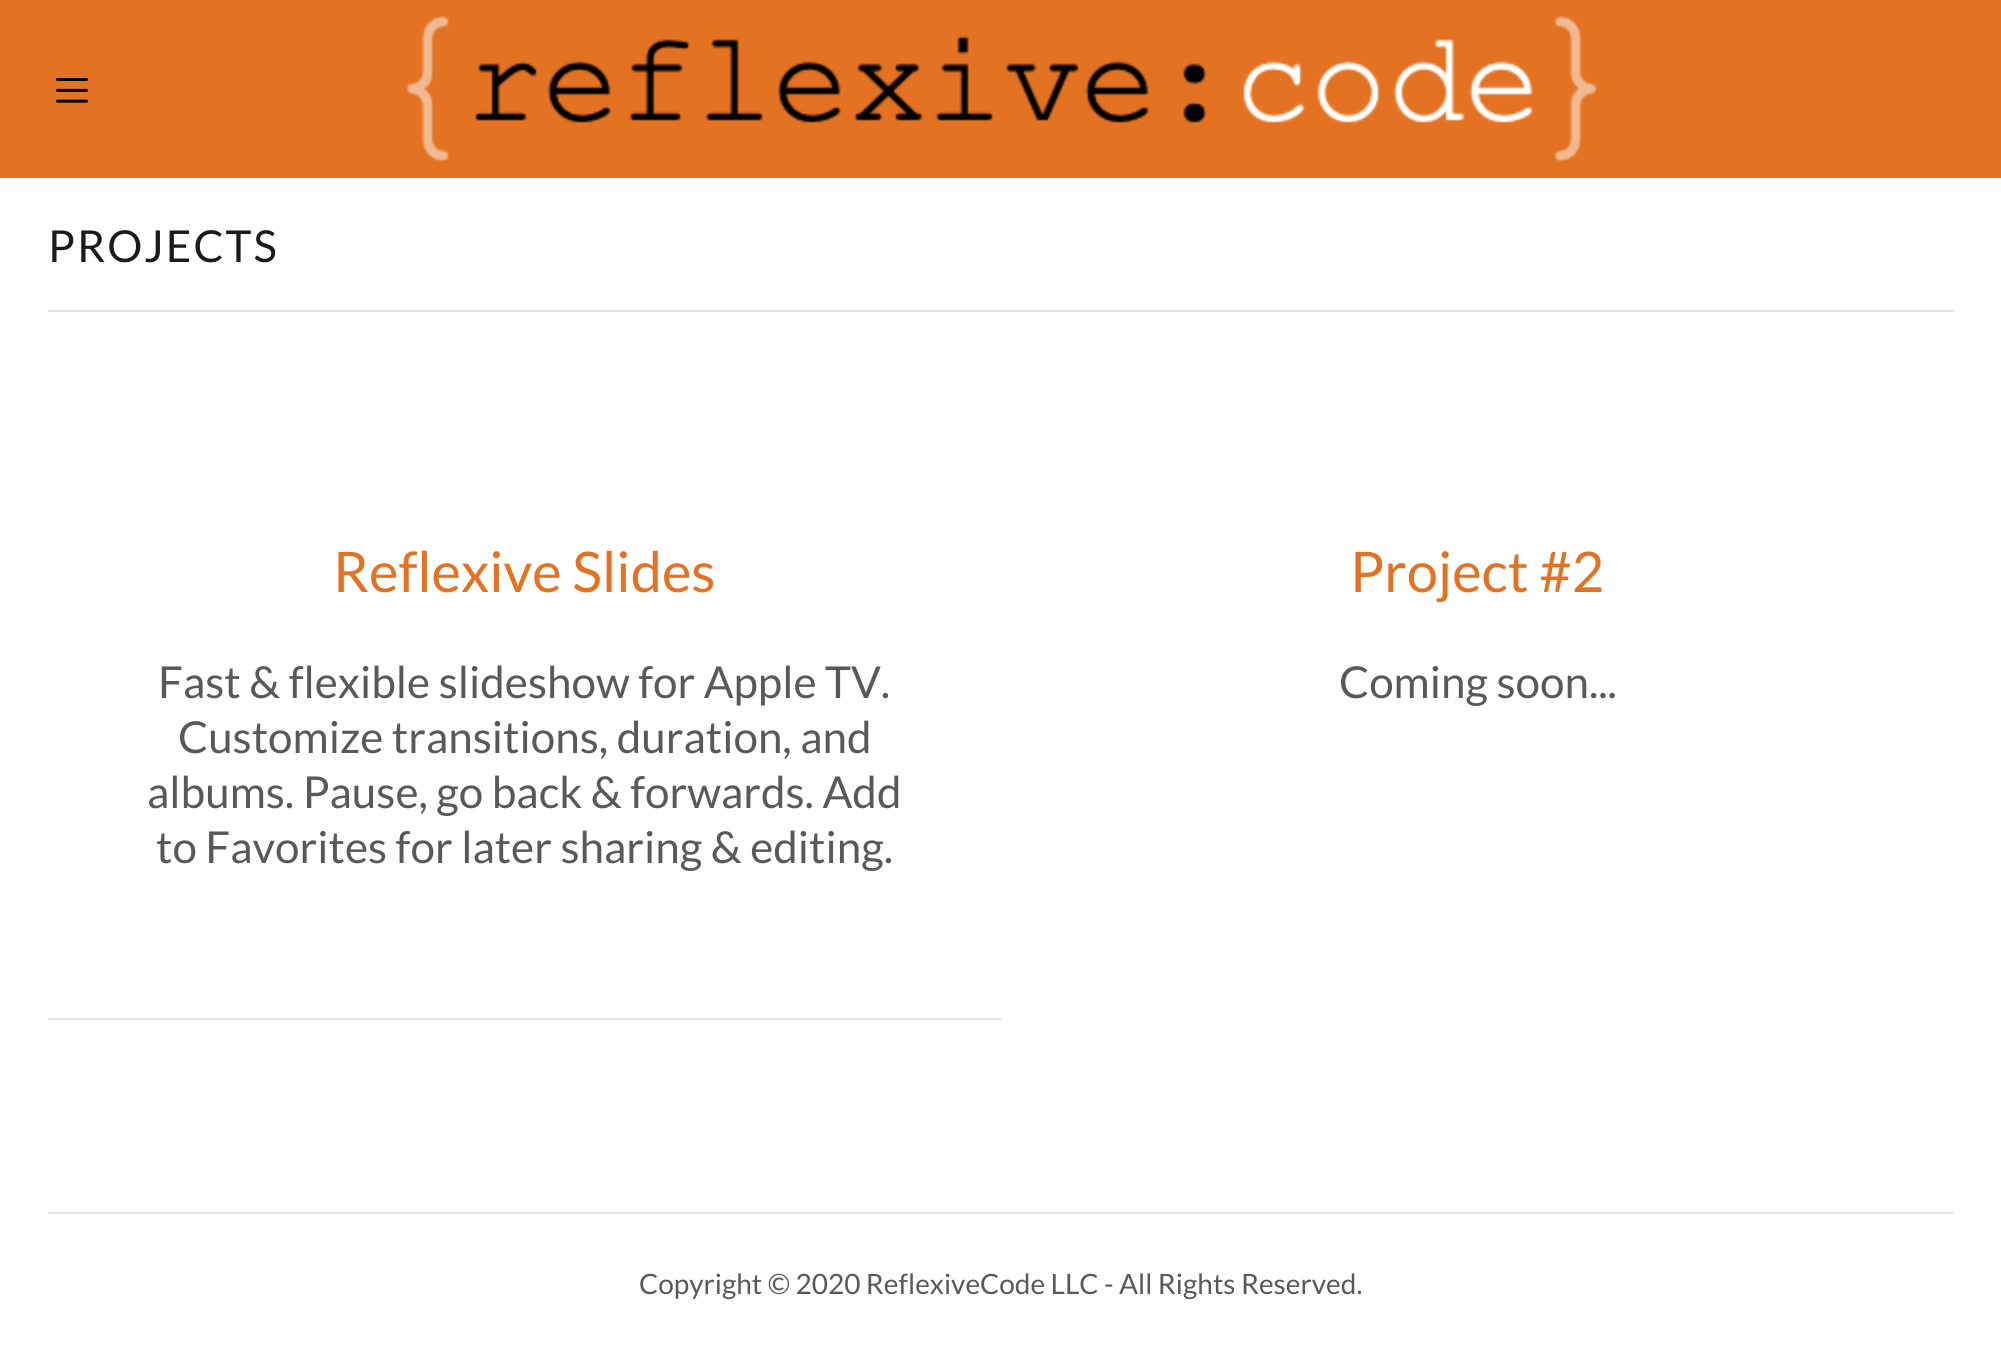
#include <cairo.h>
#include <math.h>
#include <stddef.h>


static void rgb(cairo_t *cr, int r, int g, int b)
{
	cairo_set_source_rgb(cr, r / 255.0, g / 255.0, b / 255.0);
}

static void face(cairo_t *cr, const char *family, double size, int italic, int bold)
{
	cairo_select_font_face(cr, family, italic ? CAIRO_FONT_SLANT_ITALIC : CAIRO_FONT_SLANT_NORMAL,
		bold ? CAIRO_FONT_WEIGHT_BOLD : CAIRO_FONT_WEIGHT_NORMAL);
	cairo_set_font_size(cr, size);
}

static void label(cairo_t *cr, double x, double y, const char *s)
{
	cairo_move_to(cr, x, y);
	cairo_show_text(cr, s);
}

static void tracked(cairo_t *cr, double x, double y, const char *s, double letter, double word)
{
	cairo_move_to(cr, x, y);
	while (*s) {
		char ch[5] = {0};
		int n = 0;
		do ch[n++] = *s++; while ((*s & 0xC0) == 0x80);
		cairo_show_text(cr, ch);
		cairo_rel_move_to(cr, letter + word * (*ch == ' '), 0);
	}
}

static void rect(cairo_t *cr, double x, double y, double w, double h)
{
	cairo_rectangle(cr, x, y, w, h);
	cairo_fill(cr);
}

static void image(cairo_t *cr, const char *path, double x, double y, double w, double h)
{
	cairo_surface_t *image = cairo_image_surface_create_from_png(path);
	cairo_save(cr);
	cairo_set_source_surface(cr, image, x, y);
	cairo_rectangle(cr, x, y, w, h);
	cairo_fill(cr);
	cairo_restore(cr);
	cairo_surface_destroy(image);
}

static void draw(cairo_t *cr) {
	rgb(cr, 255, 255, 255);
	cairo_paint(cr);
	rgb(cr, 227, 114, 34);
	rect(cr, 0, 0, 2001, 178);
	image(cr, "image0.png", 56, 78, 32, 25);
	image(cr, "image1.png", 406, 16, 1190, 146);
	face(cr, "Lato", 44, 0, 0);
	rgb(cr, 27, 27, 27);
	tracked(cr, 48, 262, "PROJECTS", 2, 0);
	rgb(cr, 226, 226, 226);
	rect(cr, 48, 310, 1906, 2);
	rect(cr, 48, 1018, 954, 2);
	face(cr, "Lato", 56, 0, 0);
	rgb(cr, 227, 114, 34);
	label(cr, 333, 592, "Reflexive Slides");
	face(cr, "Lato", 44, 0, 0);
	rgb(cr, 89, 89, 89);
	label(cr, 158, 698, "Fast & flexible slideshow for Apple TV.");
	label(cr, 178, 753, "Customize transitions, duration, and");
	label(cr, 147, 808, "albums. Pause, go back & forwards. Add");
	label(cr, 156, 863, "to Favorites for later sharing & editing.");
	face(cr, "Lato", 56, 0, 0);
	rgb(cr, 227, 114, 34);
	label(cr, 1350, 592, "Project #2");
	face(cr, "Lato", 44, 0, 0);
	rgb(cr, 89, 89, 89);
	label(cr, 1339, 698, "Coming soon...");
	rgb(cr, 226, 226, 226);
	rect(cr, 48, 1212, 1906, 2);
	face(cr, "Lato", 28, 0, 0);
	rgb(cr, 89, 89, 89);
	label(cr, 639, 1294, "Copyright © 2020 ReflexiveCode LLC - All Rights Reserved.");
}

int main(void) {
	cairo_surface_t *surface = cairo_image_surface_create(CAIRO_FORMAT_RGB24, 2001, 1348);
	cairo_t *cr = cairo_create(surface);
	cairo_font_options_t *options = cairo_font_options_create();
	cairo_font_options_set_hint_metrics(options, CAIRO_HINT_METRICS_OFF);
	cairo_font_options_set_hint_style(options, CAIRO_HINT_STYLE_NONE);
	cairo_set_font_options(cr, options);
	cairo_set_miter_limit(cr, 4);
	draw(cr);
	cairo_surface_write_to_png(surface, "render.png");
	cairo_font_options_destroy(options);
	cairo_destroy(cr);
	cairo_surface_destroy(surface);
	return 0;
}
